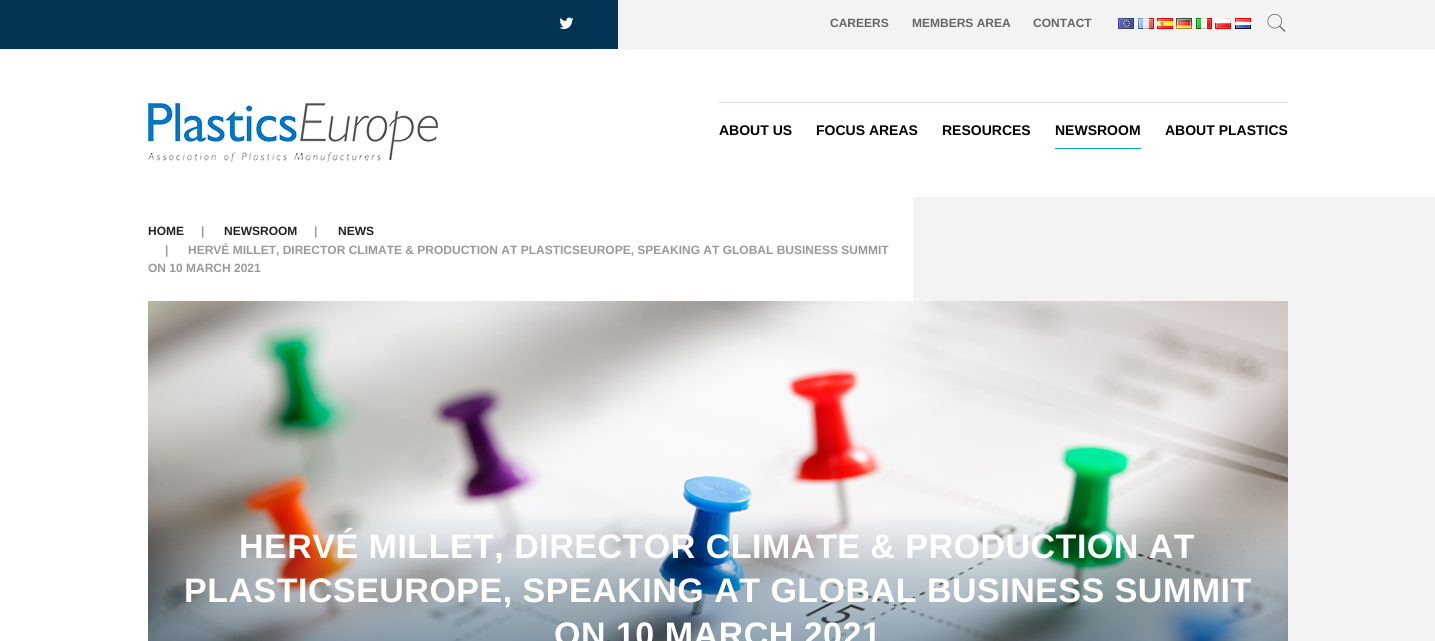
#include <cairo.h>
#include <math.h>
#include <stddef.h>


static void rgb(cairo_t *cr, int r, int g, int b)
{
	cairo_set_source_rgb(cr, r / 255.0, g / 255.0, b / 255.0);
}

static void face(cairo_t *cr, const char *family, double size, int italic, int bold)
{
	cairo_select_font_face(cr, family, italic ? CAIRO_FONT_SLANT_ITALIC : CAIRO_FONT_SLANT_NORMAL,
		bold ? CAIRO_FONT_WEIGHT_BOLD : CAIRO_FONT_WEIGHT_NORMAL);
	cairo_set_font_size(cr, size);
}

static void label(cairo_t *cr, double x, double y, const char *s)
{
	cairo_move_to(cr, x, y);
	cairo_show_text(cr, s);
}

static void tracked(cairo_t *cr, double x, double y, const char *s, double letter, double word)
{
	cairo_move_to(cr, x, y);
	while (*s) {
		char ch[5] = {0};
		int n = 0;
		do ch[n++] = *s++; while ((*s & 0xC0) == 0x80);
		cairo_show_text(cr, ch);
		cairo_rel_move_to(cr, letter + word * (*ch == ' '), 0);
	}
}

static void rect(cairo_t *cr, double x, double y, double w, double h)
{
	cairo_rectangle(cr, x, y, w, h);
	cairo_fill(cr);
}

static void image(cairo_t *cr, const char *path, double x, double y, double w, double h)
{
	cairo_surface_t *image = cairo_image_surface_create_from_png(path);
	cairo_save(cr);
	cairo_set_source_surface(cr, image, x, y);
	cairo_rectangle(cr, x, y, w, h);
	cairo_fill(cr);
	cairo_restore(cr);
	cairo_surface_destroy(image);
}

static void draw(cairo_t *cr) {
	rgb(cr, 255, 255, 255);
	cairo_paint(cr);
	rgb(cr, 243, 243, 243);
	rect(cr, 618, 0, 817, 49);
	rgb(cr, 3, 52, 84);
	rect(cr, 0, 0, 618, 49);
	image(cr, "image0.png", 559, 17, 15, 12);
	face(cr, "Liberation Sans", 12, 0, 1);
	rgb(cr, 102, 102, 102);
	label(cr, 830, 27, "CAREERS");
	label(cr, 912, 27, "MEMBERS AREA");
	label(cr, 1033, 27, "CONTACT");
	image(cr, "image1.png", 1118, 18, 16, 11);
	image(cr, "image2.png", 1138, 18, 16, 11);
	image(cr, "image3.png", 1157, 18, 16, 11);
	image(cr, "image4.png", 1176, 18, 16, 11);
	image(cr, "image5.png", 1196, 18, 16, 11);
	image(cr, "image6.png", 1215, 18, 16, 11);
	image(cr, "image7.png", 1235, 18, 16, 11);
	image(cr, "image8.png", 1267, 13, 19, 19);
	image(cr, "image9.png", 148, 103, 290, 59);
	rgb(cr, 210, 218, 224);
	rect(cr, 719, 102, 569, 1);
	face(cr, "Liberation Sans", 14, 0, 1);
	rgb(cr, 0, 0, 0);
	label(cr, 719, 135, "ABOUT US");
	label(cr, 816, 135, "FOCUS AREAS");
	label(cr, 942, 135, "RESOURCES");
	rgb(cr, 0, 173, 224);
	rect(cr, 1055, 148, 86, 1);
	rgb(cr, 0, 0, 0);
	label(cr, 1055, 135, "NEWSROOM");
	label(cr, 1165, 135, "ABOUT PLASTICS");
	rgb(cr, 243, 243, 243);
	rect(cr, 913, 197, 522, 444);
	face(cr, "Liberation Sans", 12, 0, 1);
	rgb(cr, 34, 34, 34);
	label(cr, 148, 235, "HOME");
	rgb(cr, 153, 153, 153);
	label(cr, 201, 235, "|");
	rgb(cr, 34, 34, 34);
	label(cr, 224, 235, "NEWSROOM");
	rgb(cr, 153, 153, 153);
	label(cr, 314, 235, "|");
	rgb(cr, 34, 34, 34);
	label(cr, 338, 235, "NEWS");
	rgb(cr, 153, 153, 153);
	label(cr, 165, 254, "|");
	label(cr, 188, 254, "HERVÉ MILLET, DIRECTOR CLIMATE & PRODUCTION AT PLASTICSEUROPE, SPEAKING AT GLOBAL BUSINESS SUMMIT");
	label(cr, 148, 272, "ON 10 MARCH 2021");
	image(cr, "image10.png", 148, 301, 1140, 340);
	face(cr, "Liberation Sans", 34, 0, 1);
	rgb(cr, 255, 255, 255);
	tracked(cr, 239, 558, "HERVÉ MILLET, DIRECTOR CLIMATE & PRODUCTION AT", 0.5, 0);
	tracked(cr, 184, 602, "PLASTICSEUROPE, SPEAKING AT GLOBAL BUSINESS SUMMIT", 0.5, 0);
	tracked(cr, 554, 646, "ON 10 MARCH 2021", 0.5, 0);
}

int main(void) {
	cairo_surface_t *surface = cairo_image_surface_create(CAIRO_FORMAT_RGB24, 1435, 641);
	cairo_t *cr = cairo_create(surface);
	cairo_font_options_t *options = cairo_font_options_create();
	cairo_font_options_set_hint_metrics(options, CAIRO_HINT_METRICS_OFF);
	cairo_font_options_set_hint_style(options, CAIRO_HINT_STYLE_NONE);
	cairo_set_font_options(cr, options);
	cairo_set_miter_limit(cr, 4);
	draw(cr);
	cairo_surface_write_to_png(surface, "render.png");
	cairo_font_options_destroy(options);
	cairo_destroy(cr);
	cairo_surface_destroy(surface);
	return 0;
}
